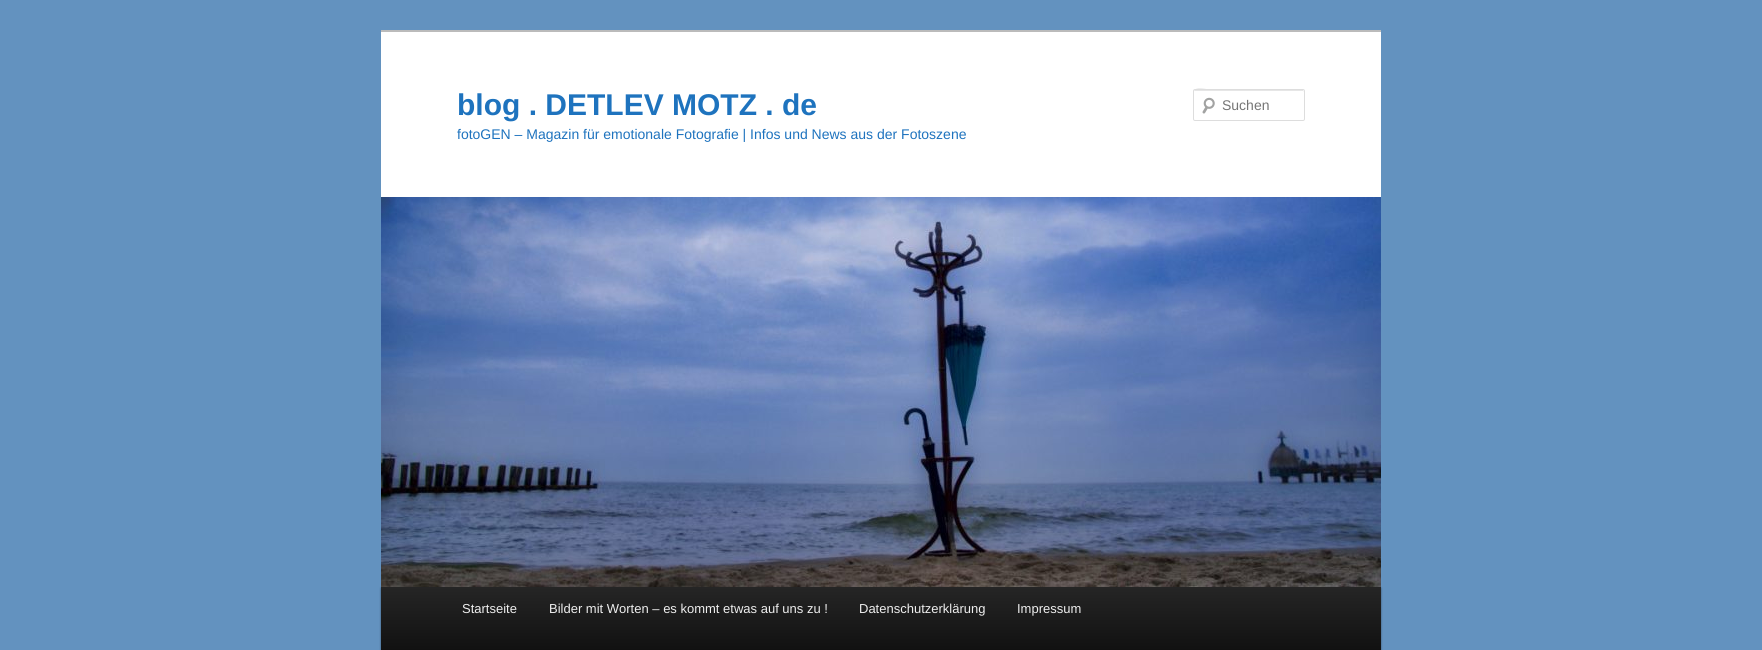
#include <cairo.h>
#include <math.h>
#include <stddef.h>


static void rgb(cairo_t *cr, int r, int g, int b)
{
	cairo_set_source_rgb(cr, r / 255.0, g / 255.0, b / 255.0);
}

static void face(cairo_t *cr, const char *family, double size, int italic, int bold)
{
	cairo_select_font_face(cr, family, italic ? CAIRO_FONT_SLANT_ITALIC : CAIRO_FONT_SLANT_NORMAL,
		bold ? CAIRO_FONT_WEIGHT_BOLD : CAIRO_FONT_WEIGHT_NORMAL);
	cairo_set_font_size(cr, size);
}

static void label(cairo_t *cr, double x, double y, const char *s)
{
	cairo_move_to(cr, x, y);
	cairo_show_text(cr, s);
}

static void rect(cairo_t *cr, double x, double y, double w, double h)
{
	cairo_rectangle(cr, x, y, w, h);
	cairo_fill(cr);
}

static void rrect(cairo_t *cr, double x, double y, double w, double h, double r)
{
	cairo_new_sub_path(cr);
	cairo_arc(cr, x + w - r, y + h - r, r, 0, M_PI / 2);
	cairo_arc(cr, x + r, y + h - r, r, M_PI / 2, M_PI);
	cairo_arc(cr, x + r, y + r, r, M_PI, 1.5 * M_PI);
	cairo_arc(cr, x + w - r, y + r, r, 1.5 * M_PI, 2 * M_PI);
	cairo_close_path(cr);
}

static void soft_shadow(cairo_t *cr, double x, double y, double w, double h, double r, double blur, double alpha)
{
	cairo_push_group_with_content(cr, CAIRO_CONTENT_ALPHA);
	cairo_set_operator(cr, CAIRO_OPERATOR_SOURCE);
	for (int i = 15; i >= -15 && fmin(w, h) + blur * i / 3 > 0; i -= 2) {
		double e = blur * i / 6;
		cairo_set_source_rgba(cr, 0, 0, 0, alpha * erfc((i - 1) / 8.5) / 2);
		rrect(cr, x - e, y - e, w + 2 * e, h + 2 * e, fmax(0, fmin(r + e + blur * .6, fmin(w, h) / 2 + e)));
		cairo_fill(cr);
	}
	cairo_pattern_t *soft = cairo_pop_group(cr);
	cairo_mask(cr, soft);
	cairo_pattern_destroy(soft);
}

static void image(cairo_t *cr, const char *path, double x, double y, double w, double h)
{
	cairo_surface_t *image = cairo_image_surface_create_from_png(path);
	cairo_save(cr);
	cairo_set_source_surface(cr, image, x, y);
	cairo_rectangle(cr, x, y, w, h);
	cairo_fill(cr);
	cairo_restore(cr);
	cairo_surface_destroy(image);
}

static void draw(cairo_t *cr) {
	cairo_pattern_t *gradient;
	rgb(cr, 99, 146, 191);
	cairo_paint(cr);
	rgb(cr, 255, 255, 255);
	rect(cr, 381, 32, 1000, 165);
	rgb(cr, 187, 187, 187);
	rect(cr, 381, 30, 1000, 2);
	face(cr, "Liberation Sans", 30, 0, 1);
	rgb(cr, 30, 115, 190);
	label(cr, 457, 115, "blog . DETLEV MOTZ . de");
	face(cr, "Liberation Sans", 14, 0, 0);
	label(cr, 457, 139, "fotoGEN – Magazin für emotionale Fotografie | Infos und News aus der Fotoszene");
	image(cr, "image0.png", 1202, 97, 13, 17);
	rgb(cr, 230, 230, 230);
	cairo_new_path(cr);
	cairo_move_to(cr, 1195, 91);
	cairo_line_to(cr, 1304, 91);
	cairo_line_to(cr, 1304, 92);
	cairo_line_to(cr, 1303, 90);
	cairo_line_to(cr, 1213, 90);
	cairo_curve_to(cr, 1209, 90, 1194, 85, 1194, 92);
	cairo_curve_to(cr, 1194, 91, 1194, 91, 1195, 91);
	cairo_close_path(cr);
	cairo_fill(cr);
	rrect(cr, 1193.5, 89.5, 111, 31, 1.5);
	rgb(cr, 221, 221, 221);
	cairo_set_line_width(cr, 1);
	cairo_stroke(cr);
	rgb(cr, 117, 117, 117);
	label(cr, 1222, 110, "Suchen");
	rgb(cr, 0, 0, 0);
	soft_shadow(cr, 381, 588, 1000, 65, 0, 1, 0.4);
	image(cr, "image1.png", 381, 197, 1000, 390);
	gradient = cairo_pattern_create_linear(881, 587, 881, 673);
	cairo_pattern_add_color_stop_rgba(gradient, 0, 0.145, 0.145, 0.145, 1);
	cairo_pattern_add_color_stop_rgba(gradient, 1, 0.039, 0.039, 0.039, 1);
	cairo_set_source(cr, gradient);
	cairo_pattern_destroy(gradient);
	rect(cr, 381, 587, 1000, 63);
	face(cr, "Liberation Sans", 13, 0, 0);
	rgb(cr, 238, 238, 238);
	label(cr, 462, 613, "Startseite");
	label(cr, 549, 613, "Bilder mit Worten – es kommt etwas auf uns zu !");
	label(cr, 859, 613, "Datenschutzerklärung");
	label(cr, 1017, 613, "Impressum");
}

int main(void) {
	cairo_surface_t *surface = cairo_image_surface_create(CAIRO_FORMAT_RGB24, 1762, 650);
	cairo_t *cr = cairo_create(surface);
	cairo_font_options_t *options = cairo_font_options_create();
	cairo_font_options_set_hint_metrics(options, CAIRO_HINT_METRICS_OFF);
	cairo_font_options_set_hint_style(options, CAIRO_HINT_STYLE_NONE);
	cairo_set_font_options(cr, options);
	cairo_set_miter_limit(cr, 4);
	draw(cr);
	cairo_surface_write_to_png(surface, "render.png");
	cairo_font_options_destroy(options);
	cairo_destroy(cr);
	cairo_surface_destroy(surface);
	return 0;
}
